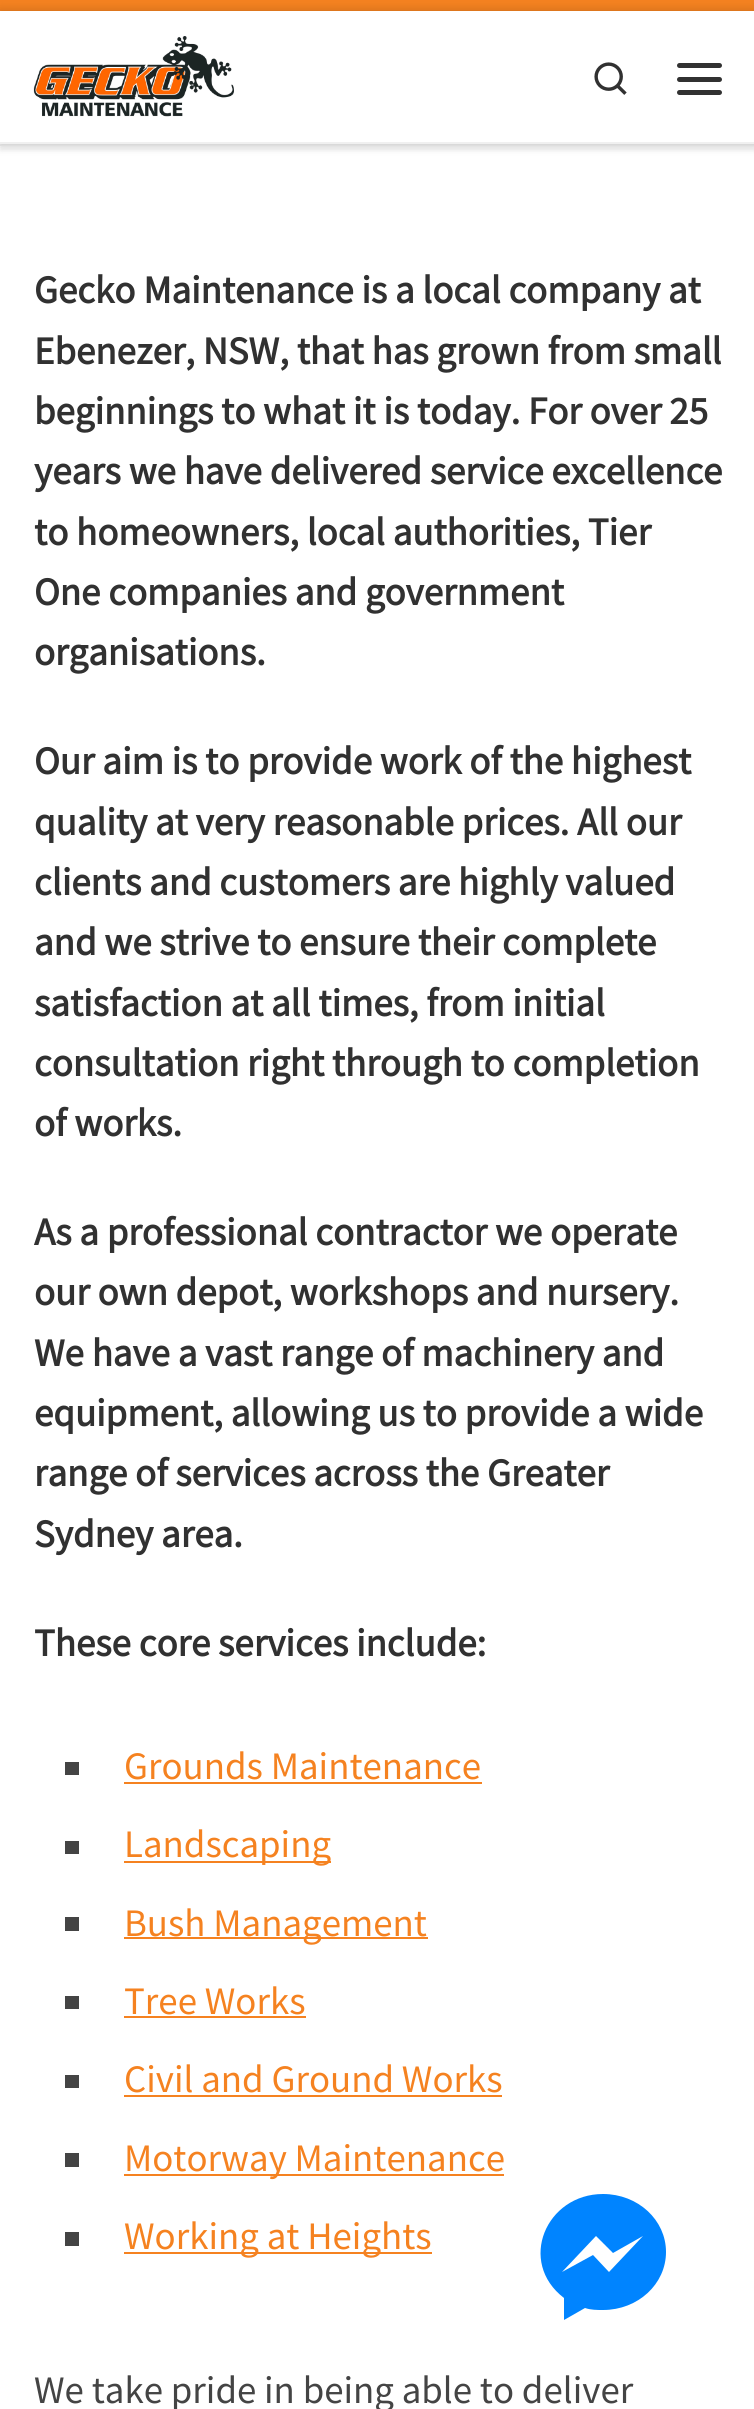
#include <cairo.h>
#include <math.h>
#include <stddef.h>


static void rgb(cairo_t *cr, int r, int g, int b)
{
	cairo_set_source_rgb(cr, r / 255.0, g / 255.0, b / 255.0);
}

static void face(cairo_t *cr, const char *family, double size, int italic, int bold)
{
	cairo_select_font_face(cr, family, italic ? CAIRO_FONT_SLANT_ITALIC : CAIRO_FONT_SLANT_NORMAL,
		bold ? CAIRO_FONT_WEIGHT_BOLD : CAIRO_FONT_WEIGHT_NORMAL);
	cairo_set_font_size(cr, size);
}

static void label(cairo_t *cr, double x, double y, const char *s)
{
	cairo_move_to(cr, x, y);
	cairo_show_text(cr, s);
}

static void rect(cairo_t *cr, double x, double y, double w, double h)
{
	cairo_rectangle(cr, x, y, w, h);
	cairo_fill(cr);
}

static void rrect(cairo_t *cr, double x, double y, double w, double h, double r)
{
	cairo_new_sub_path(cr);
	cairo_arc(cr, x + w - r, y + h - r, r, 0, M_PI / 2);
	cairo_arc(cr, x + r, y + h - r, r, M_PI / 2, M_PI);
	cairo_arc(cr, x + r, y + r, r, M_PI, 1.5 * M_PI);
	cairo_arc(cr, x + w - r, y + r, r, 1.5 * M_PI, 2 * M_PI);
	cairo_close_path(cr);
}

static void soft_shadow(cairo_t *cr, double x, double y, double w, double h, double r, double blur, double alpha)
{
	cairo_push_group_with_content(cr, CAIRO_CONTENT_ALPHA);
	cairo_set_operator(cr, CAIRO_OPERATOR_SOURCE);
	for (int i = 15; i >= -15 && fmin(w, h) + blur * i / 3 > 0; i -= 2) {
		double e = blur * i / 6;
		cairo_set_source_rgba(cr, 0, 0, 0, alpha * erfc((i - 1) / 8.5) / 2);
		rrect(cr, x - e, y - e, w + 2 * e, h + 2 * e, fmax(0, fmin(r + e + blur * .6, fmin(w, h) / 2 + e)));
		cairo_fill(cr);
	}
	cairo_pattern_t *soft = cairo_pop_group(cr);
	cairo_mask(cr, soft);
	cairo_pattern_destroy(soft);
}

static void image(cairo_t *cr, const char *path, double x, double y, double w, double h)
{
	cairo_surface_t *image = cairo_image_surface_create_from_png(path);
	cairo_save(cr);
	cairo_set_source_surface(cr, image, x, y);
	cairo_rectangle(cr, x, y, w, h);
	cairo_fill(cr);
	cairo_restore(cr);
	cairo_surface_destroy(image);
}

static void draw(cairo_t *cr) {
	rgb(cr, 255, 255, 255);
	cairo_paint(cr);
	rgb(cr, 102, 102, 102);
	soft_shadow(cr, 0, 5, 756, 146, 0, 2, 0.08);
	rgb(cr, 245, 130, 32);
	rect(cr, 0, 0, 754, 11);
	rgb(cr, 239, 239, 239);
	rect(cr, 0, 144, 754, 2);
	rgb(cr, 0, 0, 0);
	soft_shadow(cr, 0, 11, 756, 133, 0, 5.5, 0.2);
	rgb(cr, 255, 255, 255);
	rect(cr, 0, 11, 754, 131);
	image(cr, "image0.png", 33, 36, 201, 81);
	image(cr, "image1.png", 594, 62, 33, 33);
	rgb(cr, 49, 49, 49);
	rrect(cr, 677, 63, 45, 5, 2.5);
	cairo_fill(cr);
	rrect(cr, 677, 77, 45, 5, 2.5);
	cairo_fill(cr);
	rrect(cr, 677, 90, 45, 5, 2.5);
	cairo_fill(cr);
	rgb(cr, 240, 240, 240);
	rect(cr, 0, 142, 754, 2);
	face(cr, "Source Sans Pro", 38.9, 0, 1);
	rgb(cr, 49, 49, 49);
	label(cr, 34, 303, "Gecko Maintenance is a local company at");
	label(cr, 34, 364, "Ebenezer, NSW, that has grown from small");
	label(cr, 34, 424, "beginnings to what it is today. For over 25");
	label(cr, 34, 484, "years we have delivered service excellence");
	label(cr, 34, 545, "to homeowners, local authorities, Tier");
	label(cr, 34, 605, "One companies and government");
	label(cr, 34, 665, "organisations.");
	label(cr, 34, 774, "Our aim is to provide work of the highest");
	label(cr, 34, 835, "quality at very reasonable prices. All our");
	label(cr, 34, 895, "clients and customers are highly valued");
	label(cr, 34, 955, "and we strive to ensure their complete");
	label(cr, 34, 1016, "satisfaction at all times, from initial");
	label(cr, 34, 1076, "consultation right through to completion");
	label(cr, 34, 1136, "of works.");
	label(cr, 34, 1245, "As a professional contractor we operate");
	label(cr, 34, 1305, "our own depot, workshops and nursery.");
	label(cr, 34, 1366, "We have a vast range of machinery and");
	label(cr, 34, 1426, "equipment, allowing us to provide a wide");
	label(cr, 34, 1486, "range of services across the Greater");
	label(cr, 34, 1547, "Sydney area.");
	label(cr, 34, 1656, "These core services include:");
	rgb(cr, 68, 68, 68);
	rect(cr, 65, 1762, 14, 13);
	face(cr, "Source Sans Pro", 38.9, 0, 0);
	rgb(cr, 245, 130, 32);
	label(cr, 124, 1779, "Grounds Maintenance");
	rect(cr, 124, 1782, 358, 2);
	rgb(cr, 68, 68, 68);
	rect(cr, 65, 1841, 14, 13);
	rgb(cr, 245, 130, 32);
	rect(cr, 124, 1861, 207, 2);
	label(cr, 124, 1857, "Landscaping");
	rgb(cr, 68, 68, 68);
	rect(cr, 65, 1917, 14, 14);
	rgb(cr, 245, 130, 32);
	rect(cr, 124, 1937, 304, 2);
	label(cr, 124, 1936, "Bush Management");
	rgb(cr, 68, 68, 68);
	rect(cr, 65, 1996, 14, 13);
	rgb(cr, 245, 130, 32);
	label(cr, 124, 2014, "Tree Works");
	rect(cr, 124, 2016, 182, 2);
	rgb(cr, 68, 68, 68);
	rect(cr, 65, 2075, 14, 13);
	rgb(cr, 245, 130, 32);
	label(cr, 124, 2092, "Civil and Ground Works");
	rect(cr, 124, 2095, 378, 2);
	rgb(cr, 68, 68, 68);
	rect(cr, 65, 2153, 14, 14);
	rgb(cr, 245, 130, 32);
	rect(cr, 124, 2174, 380, 2);
	label(cr, 124, 2171, "Motorway Maintenance");
	rgb(cr, 68, 68, 68);
	rect(cr, 65, 2232, 14, 14);
	rgb(cr, 245, 130, 32);
	rect(cr, 124, 2252, 308, 2);
	label(cr, 124, 2249, "Working at Heights");
	rgb(cr, 68, 68, 68);
	label(cr, 34, 2403, "We take pride in being able to deliver");
	rgb(cr, 0, 132, 255);
	cairo_new_path(cr);
	cairo_move_to(cr, 603, 2194);
	cairo_curve_to(cr, 546, 2194, 517, 2262, 564, 2298);
	cairo_line_to(cr, 564, 2320);
	cairo_line_to(cr, 585, 2308);
	cairo_curve_to(cr, 591, 2310, 597, 2310, 603, 2310);
	cairo_curve_to(cr, 638, 2310, 666, 2284, 666, 2252);
	cairo_curve_to(cr, 666, 2220, 638, 2194, 603, 2194);
	cairo_close_path(cr);
	cairo_move_to(cr, 609, 2272);
	cairo_line_to(cr, 593, 2255);
	cairo_line_to(cr, 562, 2272);
	cairo_line_to(cr, 596, 2236);
	cairo_line_to(cr, 613, 2253);
	cairo_line_to(cr, 643, 2236);
	cairo_close_path(cr);
	cairo_fill(cr);
}

int main(void) {
	cairo_surface_t *surface = cairo_image_surface_create(CAIRO_FORMAT_RGB24, 754, 2409);
	cairo_t *cr = cairo_create(surface);
	cairo_font_options_t *options = cairo_font_options_create();
	cairo_font_options_set_hint_metrics(options, CAIRO_HINT_METRICS_OFF);
	cairo_font_options_set_hint_style(options, CAIRO_HINT_STYLE_NONE);
	cairo_set_font_options(cr, options);
	cairo_set_miter_limit(cr, 4);
	draw(cr);
	cairo_surface_write_to_png(surface, "render.png");
	cairo_font_options_destroy(options);
	cairo_destroy(cr);
	cairo_surface_destroy(surface);
	return 0;
}
